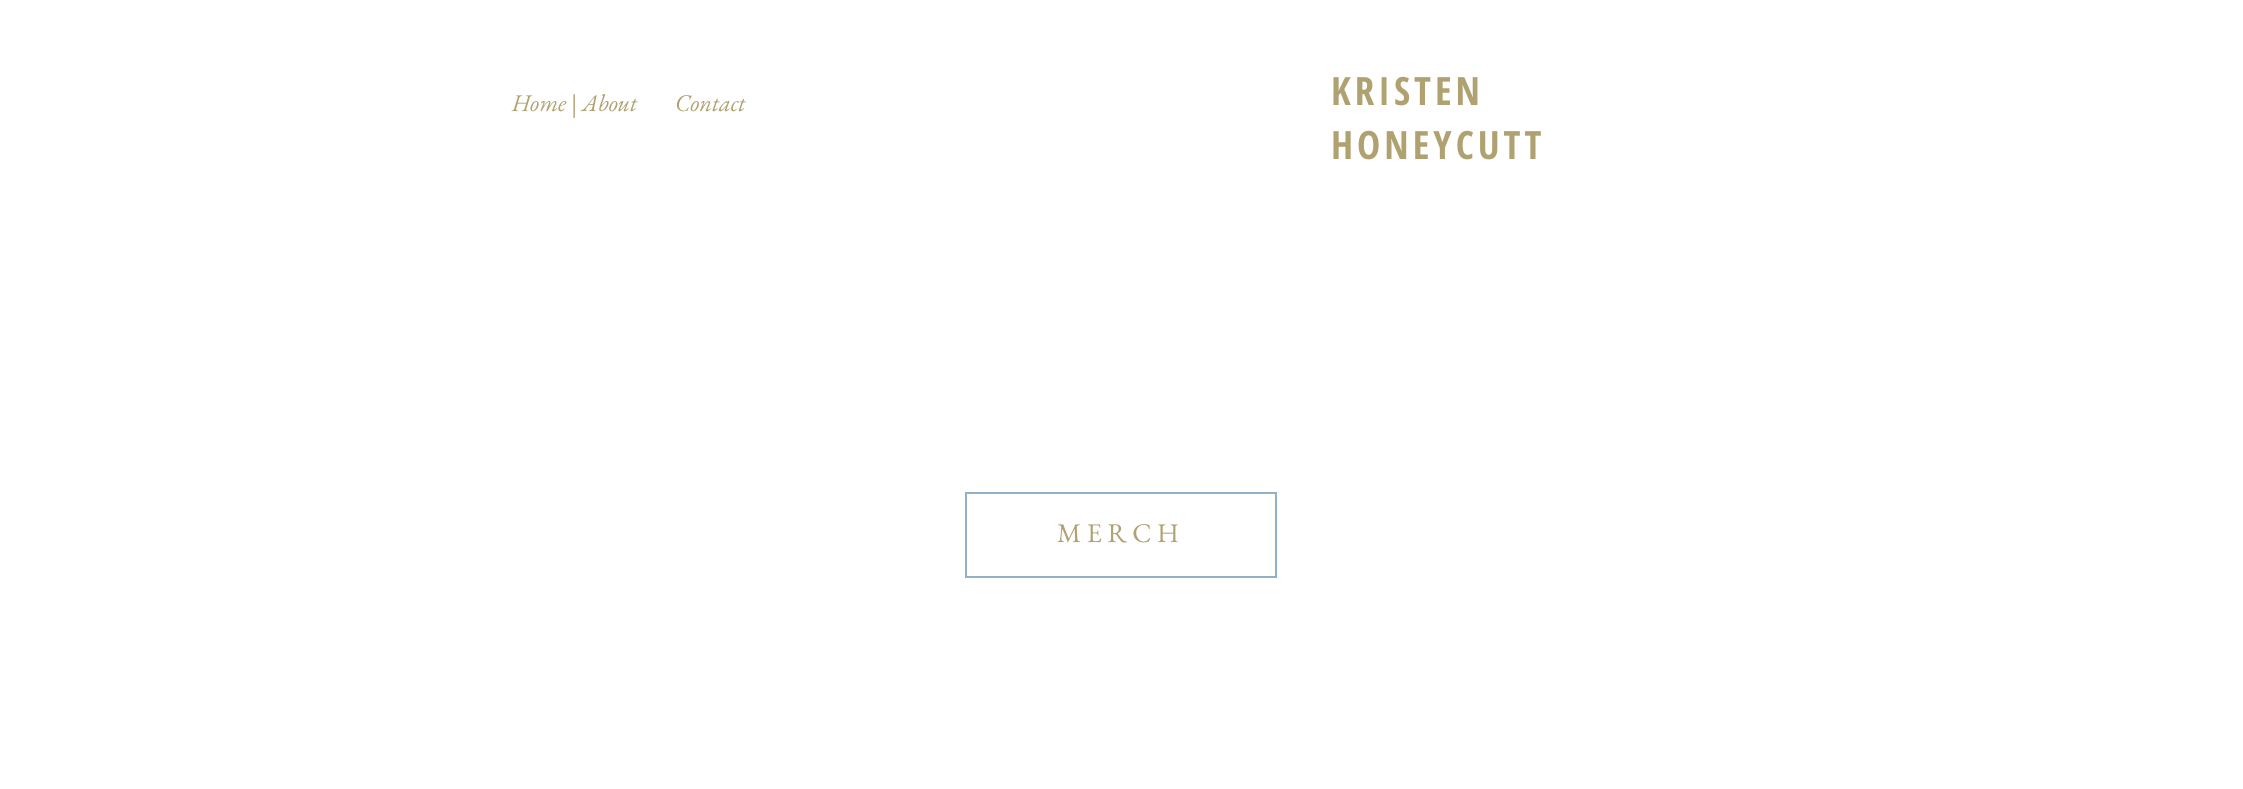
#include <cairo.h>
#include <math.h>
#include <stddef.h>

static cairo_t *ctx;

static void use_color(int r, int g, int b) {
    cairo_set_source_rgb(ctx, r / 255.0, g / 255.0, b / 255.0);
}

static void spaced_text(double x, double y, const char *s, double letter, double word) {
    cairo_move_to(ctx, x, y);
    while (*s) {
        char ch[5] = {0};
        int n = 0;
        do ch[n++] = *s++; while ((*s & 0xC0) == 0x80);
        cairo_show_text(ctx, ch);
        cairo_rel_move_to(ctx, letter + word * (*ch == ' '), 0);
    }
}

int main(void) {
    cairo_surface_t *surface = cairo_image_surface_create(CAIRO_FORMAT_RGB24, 2243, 789);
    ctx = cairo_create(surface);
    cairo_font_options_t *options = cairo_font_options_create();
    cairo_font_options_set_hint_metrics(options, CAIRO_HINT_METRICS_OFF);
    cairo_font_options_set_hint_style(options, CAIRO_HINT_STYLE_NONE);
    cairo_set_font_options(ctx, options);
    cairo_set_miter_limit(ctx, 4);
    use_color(255, 255, 255);
    cairo_paint(ctx);
    cairo_select_font_face(ctx, "EB Garamond", CAIRO_FONT_SLANT_ITALIC, CAIRO_FONT_WEIGHT_NORMAL);
    cairo_set_font_size(ctx, 24);
    use_color(176, 161, 113);
    cairo_move_to(ctx, 512, 111);
    cairo_show_text(ctx, "Home | About");
    cairo_move_to(ctx, 675, 111);
    cairo_show_text(ctx, "Contact");
    cairo_select_font_face(ctx, "Open Sans Condensed", CAIRO_FONT_SLANT_NORMAL, CAIRO_FONT_WEIGHT_BOLD);
    cairo_set_font_size(ctx, 39);
    spaced_text(1331, 105, "KRISTEN", 4, 0);
    spaced_text(1331, 159, "HONEYCUTT", 4, 0);
    cairo_rectangle(ctx, 966, 493, 310, 84);
    use_color(145, 175, 199);
    cairo_stroke(ctx);
    cairo_select_font_face(ctx, "EB Garamond", CAIRO_FONT_SLANT_NORMAL, CAIRO_FONT_WEIGHT_NORMAL);
    cairo_set_font_size(ctx, 27);
    use_color(176, 161, 113);
    spaced_text(1057, 542, "MERCH", 5.5, 0);
    cairo_surface_write_to_png(surface, "result.png");
    cairo_font_options_destroy(options);
    cairo_destroy(ctx);
    cairo_surface_destroy(surface);
    return 0;
}
